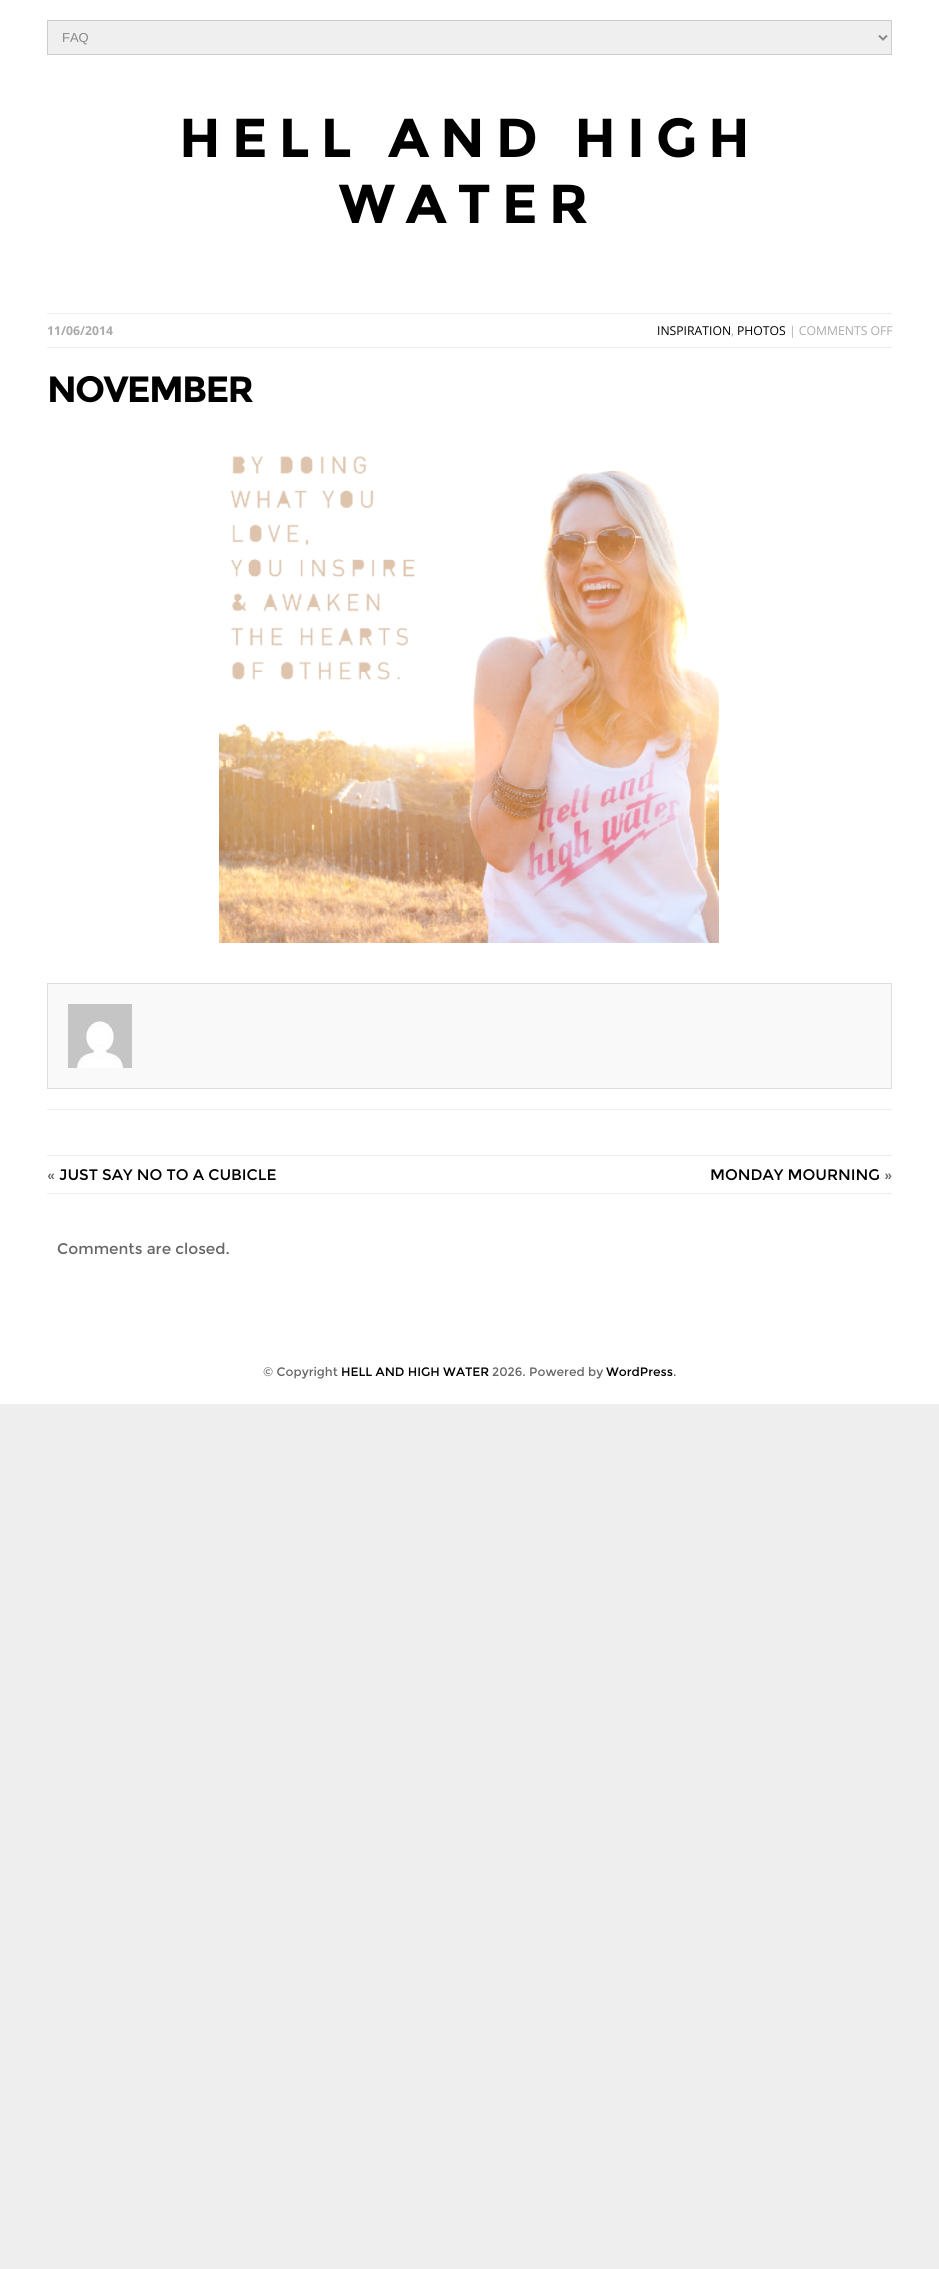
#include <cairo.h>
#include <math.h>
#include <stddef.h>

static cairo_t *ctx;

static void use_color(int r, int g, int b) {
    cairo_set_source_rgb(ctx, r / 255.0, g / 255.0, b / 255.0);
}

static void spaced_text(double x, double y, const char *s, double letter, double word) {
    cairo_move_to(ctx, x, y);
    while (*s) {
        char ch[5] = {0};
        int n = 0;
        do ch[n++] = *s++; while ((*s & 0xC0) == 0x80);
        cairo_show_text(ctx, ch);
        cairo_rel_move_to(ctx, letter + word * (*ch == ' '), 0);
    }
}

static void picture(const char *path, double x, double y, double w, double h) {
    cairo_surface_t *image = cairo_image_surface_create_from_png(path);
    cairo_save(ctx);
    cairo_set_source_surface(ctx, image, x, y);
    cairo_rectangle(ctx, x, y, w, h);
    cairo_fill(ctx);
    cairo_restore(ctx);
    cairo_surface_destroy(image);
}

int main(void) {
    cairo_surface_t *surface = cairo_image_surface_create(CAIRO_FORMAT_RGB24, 939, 2269);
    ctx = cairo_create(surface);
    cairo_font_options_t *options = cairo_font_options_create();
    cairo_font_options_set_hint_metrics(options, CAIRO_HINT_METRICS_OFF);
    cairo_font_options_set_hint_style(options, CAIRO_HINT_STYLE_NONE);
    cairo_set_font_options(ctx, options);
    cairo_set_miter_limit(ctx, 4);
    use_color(238, 238, 238);
    cairo_paint(ctx);
    use_color(255, 255, 255);
    cairo_rectangle(ctx, 0, 0, 939, 1404);
    cairo_fill(ctx);
    use_color(239, 239, 239);
    cairo_rectangle(ctx, 47.5, 20.5, 844, 34);
    cairo_fill_preserve(ctx);
    use_color(204, 204, 204);
    cairo_set_line_width(ctx, 1);
    cairo_stroke(ctx);
    cairo_new_path(ctx);
    cairo_move_to(ctx, 879, 35.5);
    cairo_line_to(ctx, 883, 39.5);
    cairo_line_to(ctx, 887, 35.5);
    use_color(136, 136, 136);
    cairo_set_line_width(ctx, 2);
    cairo_stroke(ctx);
    cairo_select_font_face(ctx, "Liberation Sans", CAIRO_FONT_SLANT_NORMAL, CAIRO_FONT_WEIGHT_NORMAL);
    cairo_set_font_size(ctx, 13);
    cairo_move_to(ctx, 62, 42);
    cairo_show_text(ctx, "FAQ");
    cairo_select_font_face(ctx, "Montserrat", CAIRO_FONT_SLANT_NORMAL, CAIRO_FONT_WEIGHT_BOLD);
    cairo_set_font_size(ctx, 54.75);
    use_color(0, 0, 0);
    spaced_text(179, 157, "HELL AND HIGH", 11, 0);
    spaced_text(339, 223, "WATER", 11, 0);
    use_color(238, 238, 238);
    cairo_rectangle(ctx, 47, 313, 845, 1);
    cairo_fill(ctx);
    cairo_rectangle(ctx, 47, 347, 845, 1);
    cairo_fill(ctx);
    cairo_select_font_face(ctx, "Open Sans", CAIRO_FONT_SLANT_NORMAL, CAIRO_FONT_WEIGHT_BOLD);
    cairo_set_font_size(ctx, 12.2);
    use_color(170, 170, 170);
    cairo_move_to(ctx, 47, 335);
    cairo_show_text(ctx, "11/06/2014");
    cairo_select_font_face(ctx, "Open Sans", CAIRO_FONT_SLANT_NORMAL, CAIRO_FONT_WEIGHT_NORMAL);
    use_color(0, 0, 0);
    cairo_move_to(ctx, 657, 335);
    cairo_show_text(ctx, "INSPIRATION");
    use_color(170, 170, 170);
    cairo_move_to(ctx, 731, 335);
    cairo_show_text(ctx, ",");
    use_color(0, 0, 0);
    cairo_move_to(ctx, 737, 335);
    cairo_show_text(ctx, "PHOTOS");
    use_color(170, 170, 170);
    cairo_move_to(ctx, 789, 335);
    cairo_show_text(ctx, "| COMMENTS OFF");
    cairo_select_font_face(ctx, "Montserrat", CAIRO_FONT_SLANT_NORMAL, CAIRO_FONT_WEIGHT_BOLD);
    cairo_set_font_size(ctx, 36.5);
    use_color(0, 0, 0);
    spaced_text(47, 402, "NOVEMBER", -1.75, 0);
    picture("img1.png", 219, 456, 500, 487);
    use_color(249, 249, 249);
    cairo_rectangle(ctx, 47.5, 983.5, 844, 105);
    cairo_fill_preserve(ctx);
    use_color(221, 221, 221);
    cairo_set_line_width(ctx, 1);
    cairo_stroke(ctx);
    picture("img2.png", 68, 1004, 64, 64);
    use_color(238, 238, 238);
    cairo_rectangle(ctx, 47, 1109, 845, 1);
    cairo_fill(ctx);
    cairo_rectangle(ctx, 47, 1155, 845, 1);
    cairo_fill(ctx);
    cairo_rectangle(ctx, 47, 1193, 845, 1);
    cairo_fill(ctx);
    cairo_select_font_face(ctx, "Montserrat", CAIRO_FONT_SLANT_NORMAL, CAIRO_FONT_WEIGHT_NORMAL);
    cairo_set_font_size(ctx, 15.25);
    use_color(102, 102, 102);
    cairo_move_to(ctx, 47, 1180);
    cairo_show_text(ctx, "«");
    use_color(0, 0, 0);
    cairo_move_to(ctx, 59, 1180);
    cairo_show_text(ctx, "JUST SAY NO TO A CUBICLE");
    cairo_move_to(ctx, 710, 1180);
    cairo_show_text(ctx, "MONDAY MOURNING");
    use_color(102, 102, 102);
    cairo_move_to(ctx, 884, 1180);
    cairo_show_text(ctx, "»");
    cairo_move_to(ctx, 57, 1254);
    cairo_show_text(ctx, "Comments are closed.");
    cairo_set_font_size(ctx, 12.2);
    cairo_move_to(ctx, 263, 1376);
    cairo_show_text(ctx, "© Copyright");
    use_color(0, 0, 0);
    cairo_move_to(ctx, 341, 1376);
    cairo_show_text(ctx, "HELL AND HIGH WATER");
    use_color(102, 102, 102);
    cairo_move_to(ctx, 492, 1376);
    cairo_show_text(ctx, "2026. Powered by");
    use_color(0, 0, 0);
    cairo_move_to(ctx, 606, 1376);
    cairo_show_text(ctx, "WordPress");
    use_color(102, 102, 102);
    cairo_move_to(ctx, 673, 1376);
    cairo_show_text(ctx, ".");
    cairo_surface_write_to_png(surface, "result.png");
    cairo_font_options_destroy(options);
    cairo_destroy(ctx);
    cairo_surface_destroy(surface);
    return 0;
}
